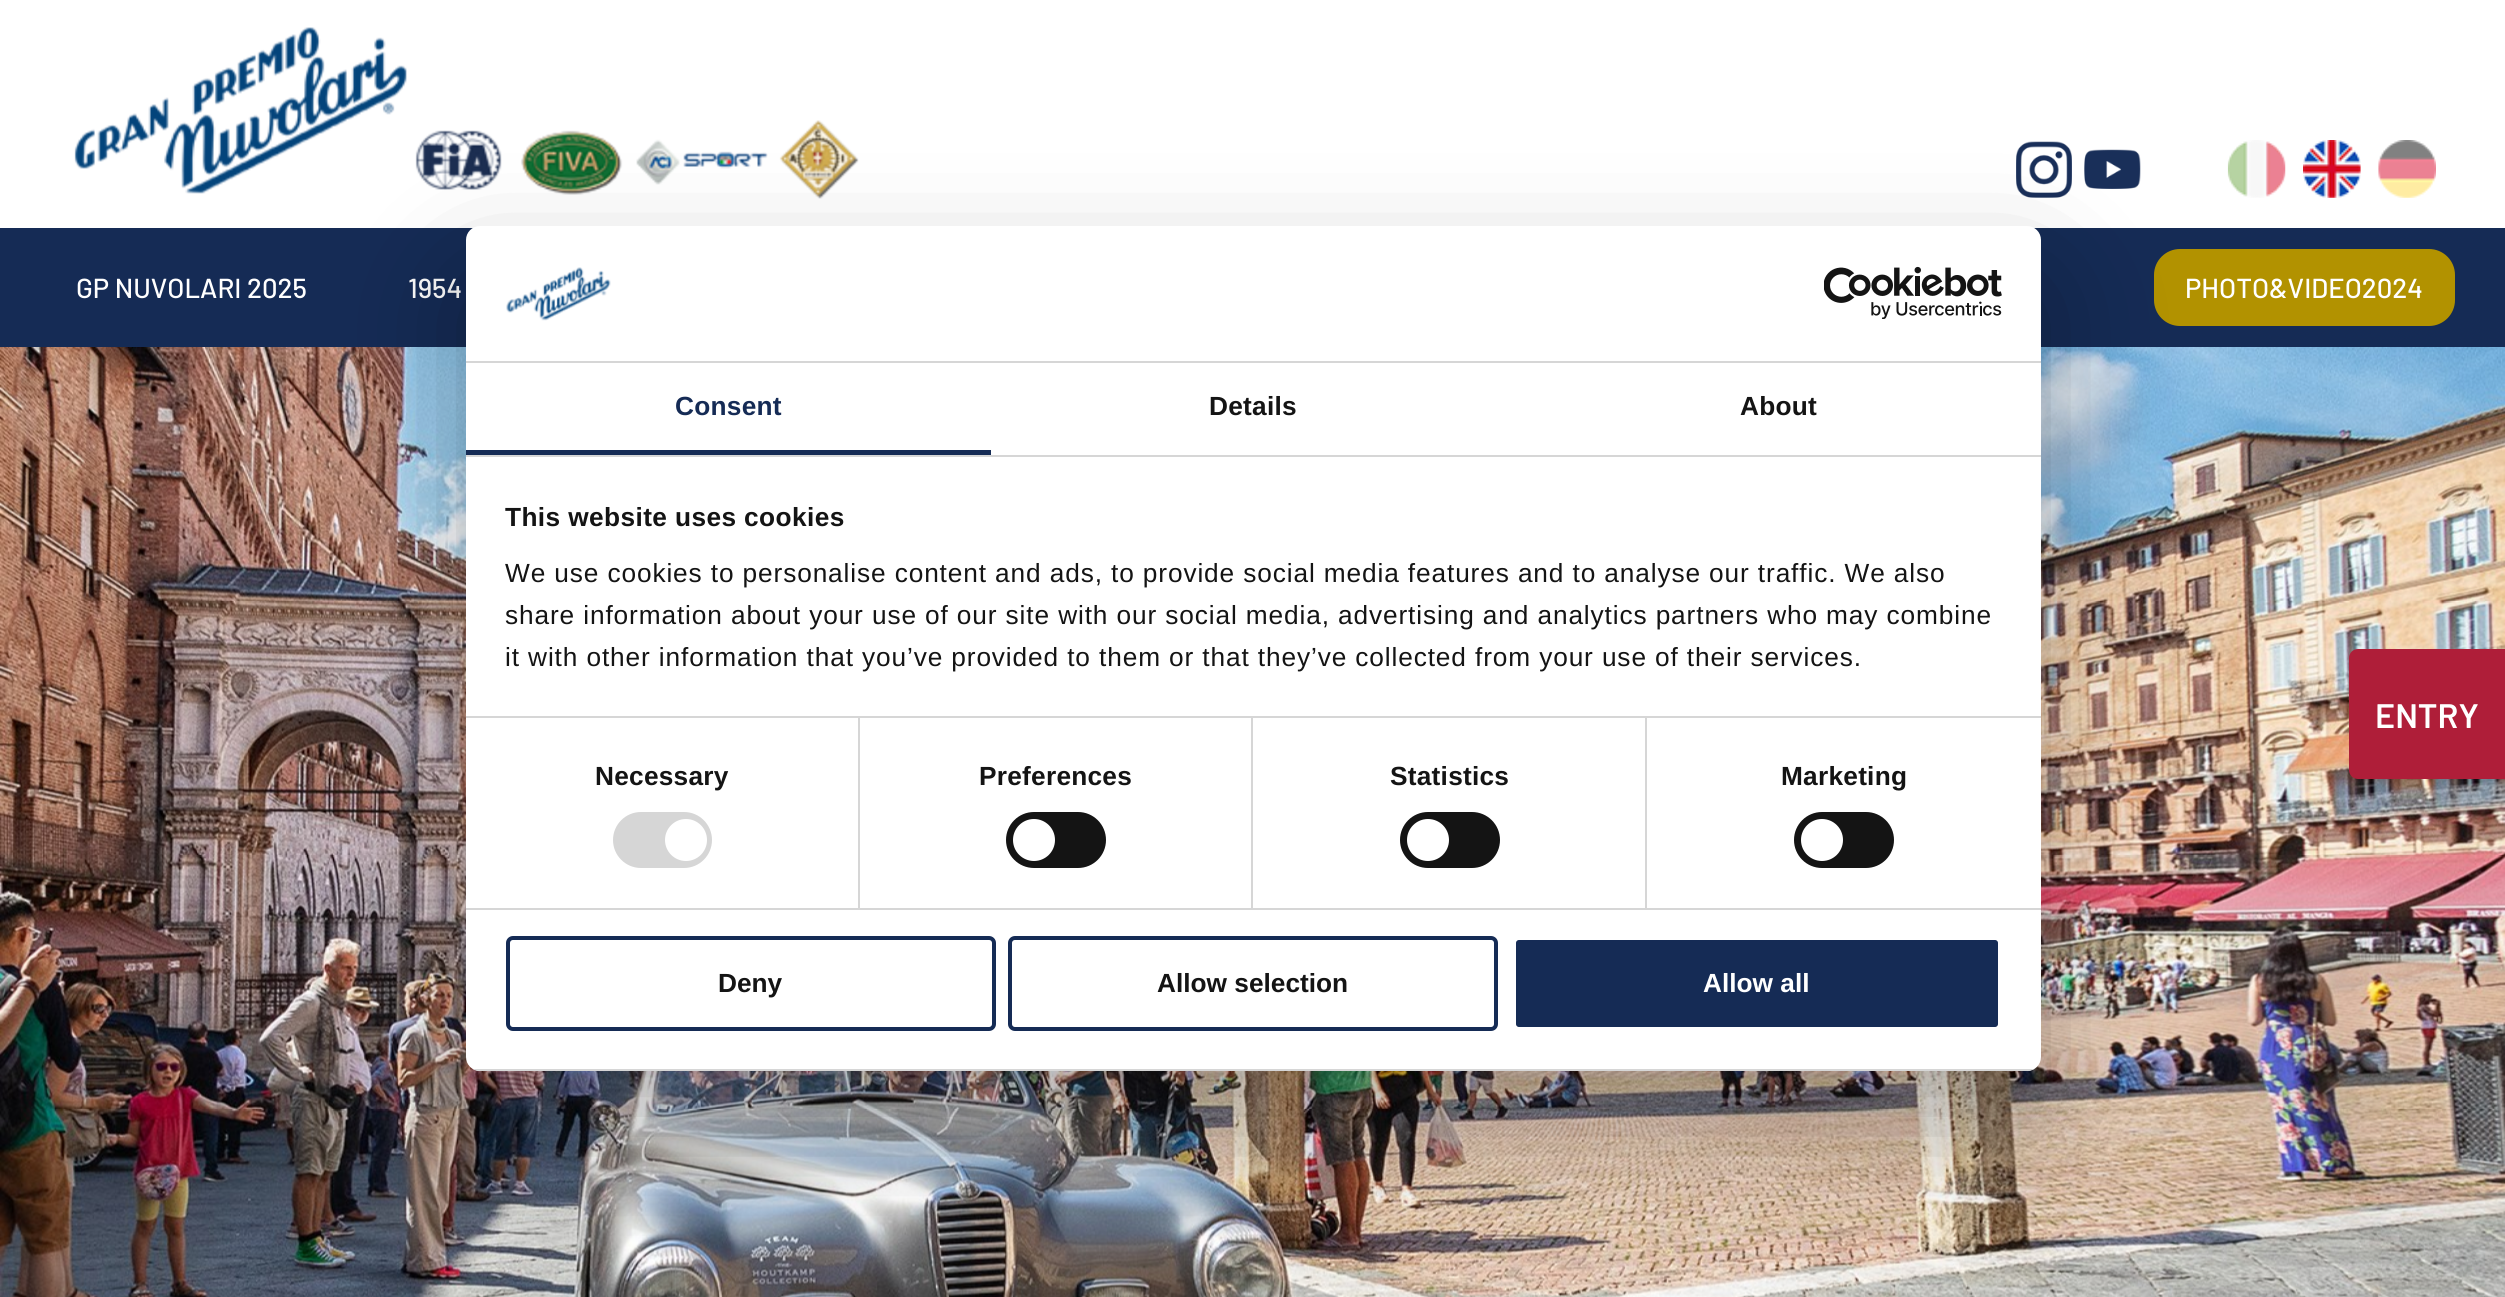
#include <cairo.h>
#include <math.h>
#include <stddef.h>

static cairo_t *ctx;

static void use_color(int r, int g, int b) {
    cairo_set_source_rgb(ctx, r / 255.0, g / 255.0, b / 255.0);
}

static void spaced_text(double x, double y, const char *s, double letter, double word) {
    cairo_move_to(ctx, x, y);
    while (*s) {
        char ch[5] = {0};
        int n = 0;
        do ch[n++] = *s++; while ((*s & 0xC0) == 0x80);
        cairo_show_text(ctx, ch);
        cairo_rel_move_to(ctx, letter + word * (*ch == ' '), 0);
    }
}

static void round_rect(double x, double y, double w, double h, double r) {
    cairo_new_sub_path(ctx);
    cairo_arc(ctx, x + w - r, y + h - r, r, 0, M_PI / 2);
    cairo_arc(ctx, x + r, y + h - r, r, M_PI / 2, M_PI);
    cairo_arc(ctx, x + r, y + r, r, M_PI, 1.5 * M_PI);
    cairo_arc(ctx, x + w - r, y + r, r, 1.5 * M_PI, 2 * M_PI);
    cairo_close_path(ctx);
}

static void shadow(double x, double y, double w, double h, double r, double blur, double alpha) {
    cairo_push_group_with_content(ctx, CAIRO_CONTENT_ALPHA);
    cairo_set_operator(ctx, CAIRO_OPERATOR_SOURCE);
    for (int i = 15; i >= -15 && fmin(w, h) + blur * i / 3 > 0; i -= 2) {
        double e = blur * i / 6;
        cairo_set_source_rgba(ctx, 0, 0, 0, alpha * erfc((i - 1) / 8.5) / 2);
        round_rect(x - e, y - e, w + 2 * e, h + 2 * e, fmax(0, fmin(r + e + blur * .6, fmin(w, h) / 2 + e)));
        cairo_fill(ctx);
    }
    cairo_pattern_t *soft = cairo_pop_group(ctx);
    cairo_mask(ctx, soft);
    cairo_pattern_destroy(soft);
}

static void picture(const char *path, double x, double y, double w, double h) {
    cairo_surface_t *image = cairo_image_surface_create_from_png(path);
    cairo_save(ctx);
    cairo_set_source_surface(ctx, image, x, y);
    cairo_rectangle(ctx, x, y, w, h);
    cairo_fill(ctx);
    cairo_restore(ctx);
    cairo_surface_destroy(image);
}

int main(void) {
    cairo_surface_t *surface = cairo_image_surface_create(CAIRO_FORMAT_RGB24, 2505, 1297);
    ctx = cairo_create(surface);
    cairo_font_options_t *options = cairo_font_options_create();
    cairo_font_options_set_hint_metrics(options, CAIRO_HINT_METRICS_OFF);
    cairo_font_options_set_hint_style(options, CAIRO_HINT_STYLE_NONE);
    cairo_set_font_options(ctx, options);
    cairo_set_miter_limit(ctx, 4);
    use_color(255, 255, 255);
    cairo_paint(ctx);
    picture("img1.png", 74, 27, 333, 167);
    picture("img2.png", 415, 120, 444, 79);
    picture("img3.png", 2016, 141, 56, 57);
    picture("img4.png", 2084, 149, 57, 40);
    picture("img5.png", 2227, 140, 59, 58);
    picture("img6.png", 2303, 140, 58, 58);
    picture("img7.png", 2378, 140, 58, 58);
    use_color(21, 43, 85);
    cairo_rectangle(ctx, 0, 228, 2505, 119);
    cairo_fill(ctx);
    cairo_select_font_face(ctx, "Barlow Medium", CAIRO_FONT_SLANT_NORMAL, CAIRO_FONT_WEIGHT_NORMAL);
    cairo_set_font_size(ctx, 27.5);
    use_color(255, 255, 255);
    cairo_move_to(ctx, 76, 298);
    cairo_show_text(ctx, "GP NUVOLARI 2025");
    cairo_move_to(ctx, 408, 298);
    cairo_show_text(ctx, "1954");
    use_color(178, 146, 0);
    round_rect(2154, 249, 301, 77, 26);
    cairo_fill(ctx);
    use_color(255, 255, 255);
    cairo_move_to(ctx, 2185, 298);
    cairo_show_text(ctx, "PHOTO&VIDEO2024");
    picture("img8.png", 0, 347, 2505, 950);
    use_color(175, 30, 57);
    cairo_new_path(ctx);
    cairo_move_to(ctx, 2358, 649);
    cairo_line_to(ctx, 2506, 649);
    cairo_line_to(ctx, 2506, 779);
    cairo_line_to(ctx, 2358, 779);
    cairo_curve_to(ctx, 2353, 779, 2349, 775, 2349, 770);
    cairo_line_to(ctx, 2349, 658);
    cairo_curve_to(ctx, 2349, 653, 2353, 649, 2358, 649);
    cairo_close_path(ctx);
    cairo_fill(ctx);
    cairo_select_font_face(ctx, "Barlow SemiBold", CAIRO_FONT_SLANT_NORMAL, CAIRO_FONT_WEIGHT_NORMAL);
    cairo_set_font_size(ctx, 34);
    use_color(255, 255, 255);
    cairo_move_to(ctx, 2375, 728);
    cairo_show_text(ctx, "ENTRY");
    use_color(0, 0, 0);
    shadow(466, 282, 1575, 845, 14, 59.5, 0.3);
    use_color(255, 255, 255);
    round_rect(466, 226, 1575, 845, 14);
    cairo_fill(ctx);
    use_color(214, 214, 214);
    cairo_rectangle(ctx, 466, 361, 1575, 2);
    cairo_fill(ctx);
    picture("img9.png", 506, 267, 105, 54);
    picture("img10.png", 1824, 266, 178, 53);
    cairo_rectangle(ctx, 466, 455, 1575, 2);
    cairo_fill(ctx);
    use_color(21, 43, 85);
    cairo_rectangle(ctx, 466, 450, 525, 5);
    cairo_fill(ctx);
    cairo_select_font_face(ctx, "Liberation Sans", CAIRO_FONT_SLANT_NORMAL, CAIRO_FONT_WEIGHT_BOLD);
    cairo_set_font_size(ctx, 26.25);
    spaced_text(675, 415, "Consent", 0.25, 0);
    use_color(20, 20, 20);
    spaced_text(1209, 415, "Details", 0.25, 0);
    spaced_text(1740, 415, "About", 0.25, 0);
    use_color(214, 214, 214);
    cairo_rectangle(ctx, 466, 716, 1575, 2);
    cairo_fill(ctx);
    use_color(20, 20, 20);
    spaced_text(505, 526, "This website uses cookies", 0.4, 0);
    cairo_select_font_face(ctx, "Liberation Sans", CAIRO_FONT_SLANT_NORMAL, CAIRO_FONT_WEIGHT_NORMAL);
    spaced_text(505, 582, "We use cookies to personalise content and ads, to provide social media features and to analyse our traffic. We also", 0.88, 0);
    spaced_text(505, 624, "share information about your use of our site with our social media, advertising and analytics partners who may combine", 0.88, 0);
    spaced_text(505, 666, "it with other information that you’ve provided to them or that they’ve collected from your use of their services.", 0.88, 0);
    use_color(214, 214, 214);
    cairo_rectangle(ctx, 466, 908, 1575, 2);
    cairo_fill(ctx);
    cairo_rectangle(ctx, 858, 718, 2, 190);
    cairo_fill(ctx);
    cairo_select_font_face(ctx, "Liberation Sans", CAIRO_FONT_SLANT_NORMAL, CAIRO_FONT_WEIGHT_BOLD);
    use_color(20, 20, 20);
    spaced_text(595, 785, "Necessary", 0.25, 0);
    use_color(214, 214, 214);
    round_rect(613, 812, 99, 56, 28);
    cairo_fill(ctx);
    use_color(255, 255, 255);
    cairo_arc(ctx, 686, 840, 21, 0, 2 * M_PI);
    cairo_fill(ctx);
    use_color(214, 214, 214);
    cairo_rectangle(ctx, 1251, 718, 2, 190);
    cairo_fill(ctx);
    use_color(20, 20, 20);
    spaced_text(979, 785, "Preferences", 0.25, 0);
    round_rect(1006, 812, 100, 56, 28);
    cairo_fill(ctx);
    use_color(255, 255, 255);
    cairo_arc(ctx, 1034, 840, 21, 0, 2 * M_PI);
    cairo_fill(ctx);
    use_color(214, 214, 214);
    cairo_rectangle(ctx, 1645, 718, 2, 190);
    cairo_fill(ctx);
    use_color(20, 20, 20);
    spaced_text(1390, 785, "Statistics", 0.25, 0);
    round_rect(1400, 812, 100, 56, 28);
    cairo_fill(ctx);
    use_color(255, 255, 255);
    cairo_arc(ctx, 1428, 840, 21, 0, 2 * M_PI);
    cairo_fill(ctx);
    use_color(20, 20, 20);
    spaced_text(1781, 785, "Marketing", 0.25, 0);
    round_rect(1794, 812, 100, 56, 28);
    cairo_fill(ctx);
    use_color(255, 255, 255);
    cairo_arc(ctx, 1822, 840, 21, 0, 2 * M_PI);
    cairo_fill(ctx);
    cairo_save(ctx);
    round_rect(466, 226, 1575, 845, 14);
    cairo_clip(ctx);
    use_color(214, 214, 214);
    cairo_rectangle(ctx, 466, 1069, 1575, 2);
    cairo_fill(ctx);
    cairo_restore(ctx);
    round_rect(508, 938, 486, 91, 5);
    use_color(21, 43, 85);
    cairo_set_line_width(ctx, 4);
    cairo_stroke(ctx);
    use_color(20, 20, 20);
    cairo_move_to(ctx, 718, 992);
    cairo_show_text(ctx, "Deny");
    round_rect(1010, 938, 486, 91, 5);
    use_color(21, 43, 85);
    cairo_stroke(ctx);
    use_color(20, 20, 20);
    cairo_move_to(ctx, 1157, 992);
    cairo_show_text(ctx, "Allow selection");
    use_color(21, 43, 85);
    round_rect(1514, 938, 486, 91, 5);
    cairo_fill_preserve(ctx);
    use_color(255, 255, 255);
    cairo_stroke(ctx);
    cairo_move_to(ctx, 1703, 992);
    cairo_show_text(ctx, "Allow all");
    cairo_surface_write_to_png(surface, "result.png");
    cairo_font_options_destroy(options);
    cairo_destroy(ctx);
    cairo_surface_destroy(surface);
    return 0;
}
